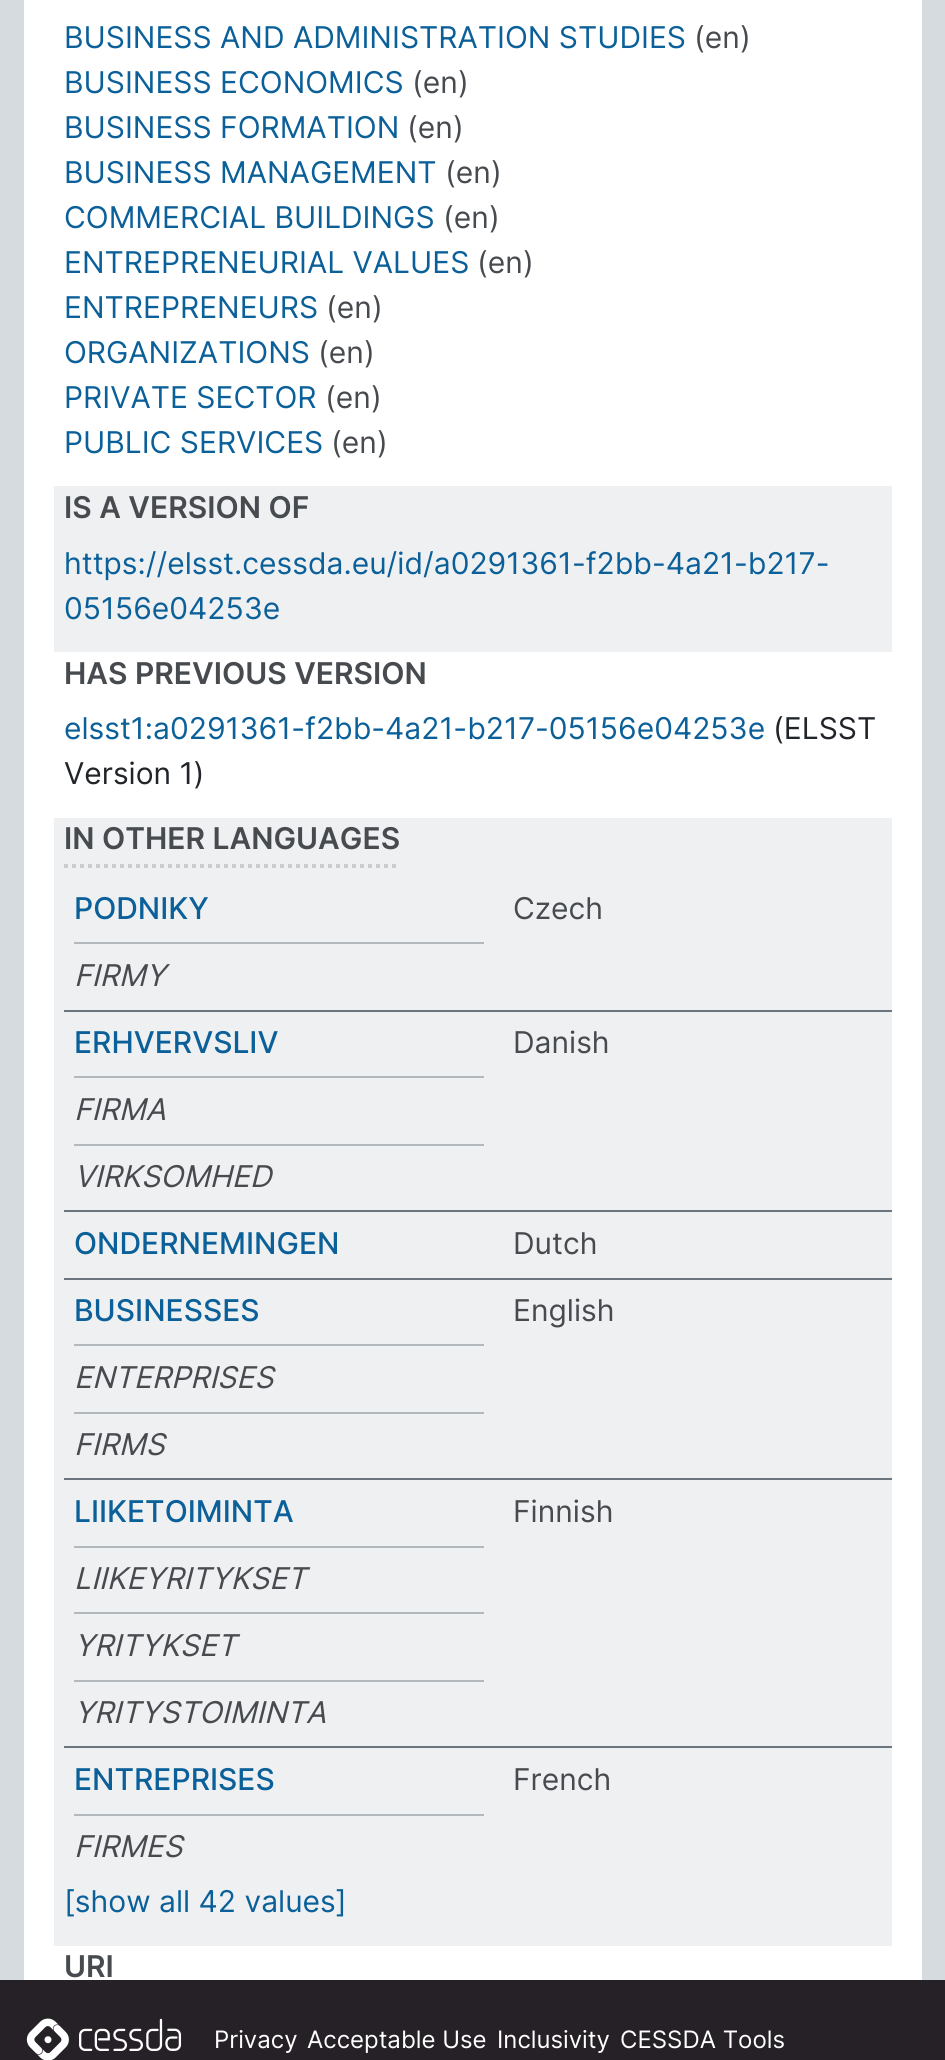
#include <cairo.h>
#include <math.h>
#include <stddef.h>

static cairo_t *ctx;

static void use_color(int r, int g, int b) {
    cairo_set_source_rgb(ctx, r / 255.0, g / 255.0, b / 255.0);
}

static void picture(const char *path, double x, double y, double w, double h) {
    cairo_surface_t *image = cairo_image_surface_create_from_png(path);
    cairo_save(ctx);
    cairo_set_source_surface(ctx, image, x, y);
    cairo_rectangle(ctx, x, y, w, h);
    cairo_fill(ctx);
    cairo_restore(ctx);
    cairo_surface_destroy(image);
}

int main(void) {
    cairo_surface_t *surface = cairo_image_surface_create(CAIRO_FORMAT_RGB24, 945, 2060);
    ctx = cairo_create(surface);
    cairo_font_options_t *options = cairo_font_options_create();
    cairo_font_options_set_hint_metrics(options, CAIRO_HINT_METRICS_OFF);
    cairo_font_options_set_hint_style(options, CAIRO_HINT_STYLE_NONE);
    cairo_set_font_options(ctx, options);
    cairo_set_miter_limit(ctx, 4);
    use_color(213, 219, 222);
    cairo_paint(ctx);
    use_color(255, 255, 255);
    cairo_rectangle(ctx, 24, 0, 898, 1980);
    cairo_fill(ctx);
    cairo_select_font_face(ctx, "Inter", CAIRO_FONT_SLANT_NORMAL, CAIRO_FONT_WEIGHT_NORMAL);
    cairo_set_font_size(ctx, 30);
    use_color(11, 96, 153);
    cairo_move_to(ctx, 64, 48);
    cairo_show_text(ctx, "BUSINESS AND ADMINISTRATION STUDIES");
    use_color(71, 75, 79);
    cairo_move_to(ctx, 694, 48);
    cairo_show_text(ctx, "(en)");
    use_color(11, 96, 153);
    cairo_move_to(ctx, 64, 93);
    cairo_show_text(ctx, "BUSINESS ECONOMICS");
    use_color(71, 75, 79);
    cairo_move_to(ctx, 412, 93);
    cairo_show_text(ctx, "(en)");
    use_color(11, 96, 153);
    cairo_move_to(ctx, 64, 138);
    cairo_show_text(ctx, "BUSINESS FORMATION");
    use_color(71, 75, 79);
    cairo_move_to(ctx, 407, 138);
    cairo_show_text(ctx, "(en)");
    use_color(11, 96, 153);
    cairo_move_to(ctx, 64, 183);
    cairo_show_text(ctx, "BUSINESS MANAGEMENT");
    use_color(71, 75, 79);
    cairo_move_to(ctx, 445, 183);
    cairo_show_text(ctx, "(en)");
    use_color(11, 96, 153);
    cairo_move_to(ctx, 64, 228);
    cairo_show_text(ctx, "COMMERCIAL BUILDINGS");
    use_color(71, 75, 79);
    cairo_move_to(ctx, 443, 228);
    cairo_show_text(ctx, "(en)");
    use_color(11, 96, 153);
    cairo_move_to(ctx, 64, 273);
    cairo_show_text(ctx, "ENTREPRENEURIAL VALUES");
    use_color(71, 75, 79);
    cairo_move_to(ctx, 477, 273);
    cairo_show_text(ctx, "(en)");
    use_color(11, 96, 153);
    cairo_move_to(ctx, 64, 318);
    cairo_show_text(ctx, "ENTREPRENEURS");
    use_color(71, 75, 79);
    cairo_move_to(ctx, 326, 318);
    cairo_show_text(ctx, "(en)");
    use_color(11, 96, 153);
    cairo_move_to(ctx, 64, 363);
    cairo_show_text(ctx, "ORGANIZATIONS");
    use_color(71, 75, 79);
    cairo_move_to(ctx, 318, 363);
    cairo_show_text(ctx, "(en)");
    use_color(11, 96, 153);
    cairo_move_to(ctx, 64, 408);
    cairo_show_text(ctx, "PRIVATE SECTOR");
    use_color(71, 75, 79);
    cairo_move_to(ctx, 325, 408);
    cairo_show_text(ctx, "(en)");
    use_color(11, 96, 153);
    cairo_move_to(ctx, 64, 453);
    cairo_show_text(ctx, "PUBLIC SERVICES");
    use_color(71, 75, 79);
    cairo_move_to(ctx, 331, 453);
    cairo_show_text(ctx, "(en)");
    use_color(239, 240, 241);
    cairo_rectangle(ctx, 54, 486, 838, 166);
    cairo_fill(ctx);
    cairo_select_font_face(ctx, "Inter SemiBold", CAIRO_FONT_SLANT_NORMAL, CAIRO_FONT_WEIGHT_NORMAL);
    use_color(71, 75, 79);
    cairo_move_to(ctx, 64, 518);
    cairo_show_text(ctx, "IS A VERSION OF");
    cairo_select_font_face(ctx, "Inter", CAIRO_FONT_SLANT_NORMAL, CAIRO_FONT_WEIGHT_NORMAL);
    use_color(11, 96, 153);
    cairo_move_to(ctx, 64, 574);
    cairo_show_text(ctx, "https://elsst.cessda.eu/id/a0291361-f2bb-4a21-b217-");
    cairo_move_to(ctx, 64, 619);
    cairo_show_text(ctx, "05156e04253e");
    cairo_select_font_face(ctx, "Inter SemiBold", CAIRO_FONT_SLANT_NORMAL, CAIRO_FONT_WEIGHT_NORMAL);
    use_color(71, 75, 79);
    cairo_move_to(ctx, 64, 684);
    cairo_show_text(ctx, "HAS PREVIOUS VERSION");
    cairo_select_font_face(ctx, "Inter", CAIRO_FONT_SLANT_NORMAL, CAIRO_FONT_WEIGHT_NORMAL);
    use_color(11, 96, 153);
    cairo_move_to(ctx, 64, 739);
    cairo_show_text(ctx, "elsst1:a0291361-f2bb-4a21-b217-05156e04253e");
    use_color(33, 37, 41);
    cairo_move_to(ctx, 773, 739);
    cairo_show_text(ctx, "(ELSST");
    cairo_move_to(ctx, 64, 784);
    cairo_show_text(ctx, "Version 1)");
    use_color(239, 240, 241);
    cairo_rectangle(ctx, 54, 818, 838, 1128);
    cairo_fill(ctx);
    cairo_new_path(ctx);
    cairo_move_to(ctx, 64, 866);
    cairo_line_to(ctx, 400, 866);
    use_color(204, 204, 204);
    cairo_set_line_width(ctx, 4);
    cairo_set_dash(ctx, (double[]){4, 4}, 2, 0);
    cairo_stroke(ctx);
    cairo_select_font_face(ctx, "Inter SemiBold", CAIRO_FONT_SLANT_NORMAL, CAIRO_FONT_WEIGHT_NORMAL);
    use_color(71, 75, 79);
    cairo_move_to(ctx, 64, 849);
    cairo_show_text(ctx, "IN OTHER LANGUAGES");
    cairo_select_font_face(ctx, "Inter Medium", CAIRO_FONT_SLANT_NORMAL, CAIRO_FONT_WEIGHT_NORMAL);
    use_color(11, 96, 153);
    cairo_move_to(ctx, 74, 919);
    cairo_show_text(ctx, "PODNIKY");
    cairo_select_font_face(ctx, "Inter", CAIRO_FONT_SLANT_NORMAL, CAIRO_FONT_WEIGHT_NORMAL);
    use_color(71, 75, 79);
    cairo_move_to(ctx, 513, 919);
    cairo_show_text(ctx, "Czech");
    use_color(179, 184, 189);
    cairo_rectangle(ctx, 74, 942, 410, 2);
    cairo_fill(ctx);
    cairo_select_font_face(ctx, "Inter", CAIRO_FONT_SLANT_ITALIC, CAIRO_FONT_WEIGHT_NORMAL);
    use_color(71, 75, 79);
    cairo_move_to(ctx, 74, 986);
    cairo_show_text(ctx, "FIRMY");
    use_color(108, 117, 125);
    cairo_rectangle(ctx, 64, 1010, 828, 2);
    cairo_fill(ctx);
    cairo_select_font_face(ctx, "Inter Medium", CAIRO_FONT_SLANT_NORMAL, CAIRO_FONT_WEIGHT_NORMAL);
    use_color(11, 96, 153);
    cairo_move_to(ctx, 74, 1053);
    cairo_show_text(ctx, "ERHVERVSLIV");
    cairo_select_font_face(ctx, "Inter", CAIRO_FONT_SLANT_NORMAL, CAIRO_FONT_WEIGHT_NORMAL);
    use_color(71, 75, 79);
    cairo_move_to(ctx, 513, 1053);
    cairo_show_text(ctx, "Danish");
    use_color(179, 184, 189);
    cairo_rectangle(ctx, 74, 1076, 410, 2);
    cairo_fill(ctx);
    cairo_select_font_face(ctx, "Inter", CAIRO_FONT_SLANT_ITALIC, CAIRO_FONT_WEIGHT_NORMAL);
    use_color(71, 75, 79);
    cairo_move_to(ctx, 74, 1120);
    cairo_show_text(ctx, "FIRMA");
    use_color(179, 184, 189);
    cairo_rectangle(ctx, 74, 1144, 410, 2);
    cairo_fill(ctx);
    use_color(71, 75, 79);
    cairo_move_to(ctx, 74, 1187);
    cairo_show_text(ctx, "VIRKSOMHED");
    use_color(108, 117, 125);
    cairo_rectangle(ctx, 64, 1210, 828, 2);
    cairo_fill(ctx);
    cairo_select_font_face(ctx, "Inter Medium", CAIRO_FONT_SLANT_NORMAL, CAIRO_FONT_WEIGHT_NORMAL);
    use_color(11, 96, 153);
    cairo_move_to(ctx, 74, 1254);
    cairo_show_text(ctx, "ONDERNEMINGEN");
    cairo_select_font_face(ctx, "Inter", CAIRO_FONT_SLANT_NORMAL, CAIRO_FONT_WEIGHT_NORMAL);
    use_color(71, 75, 79);
    cairo_move_to(ctx, 513, 1254);
    cairo_show_text(ctx, "Dutch");
    use_color(108, 117, 125);
    cairo_rectangle(ctx, 64, 1278, 828, 2);
    cairo_fill(ctx);
    cairo_select_font_face(ctx, "Inter Medium", CAIRO_FONT_SLANT_NORMAL, CAIRO_FONT_WEIGHT_NORMAL);
    use_color(11, 96, 153);
    cairo_move_to(ctx, 74, 1321);
    cairo_show_text(ctx, "BUSINESSES");
    cairo_select_font_face(ctx, "Inter", CAIRO_FONT_SLANT_NORMAL, CAIRO_FONT_WEIGHT_NORMAL);
    use_color(71, 75, 79);
    cairo_move_to(ctx, 513, 1321);
    cairo_show_text(ctx, "English");
    use_color(179, 184, 189);
    cairo_rectangle(ctx, 74, 1344, 410, 2);
    cairo_fill(ctx);
    cairo_select_font_face(ctx, "Inter", CAIRO_FONT_SLANT_ITALIC, CAIRO_FONT_WEIGHT_NORMAL);
    use_color(71, 75, 79);
    cairo_move_to(ctx, 74, 1388);
    cairo_show_text(ctx, "ENTERPRISES");
    use_color(179, 184, 189);
    cairo_rectangle(ctx, 74, 1412, 410, 2);
    cairo_fill(ctx);
    use_color(71, 75, 79);
    cairo_move_to(ctx, 74, 1455);
    cairo_show_text(ctx, "FIRMS");
    use_color(108, 117, 125);
    cairo_rectangle(ctx, 64, 1478, 828, 2);
    cairo_fill(ctx);
    cairo_select_font_face(ctx, "Inter Medium", CAIRO_FONT_SLANT_NORMAL, CAIRO_FONT_WEIGHT_NORMAL);
    use_color(11, 96, 153);
    cairo_move_to(ctx, 74, 1522);
    cairo_show_text(ctx, "LIIKETOIMINTA");
    cairo_select_font_face(ctx, "Inter", CAIRO_FONT_SLANT_NORMAL, CAIRO_FONT_WEIGHT_NORMAL);
    use_color(71, 75, 79);
    cairo_move_to(ctx, 513, 1522);
    cairo_show_text(ctx, "Finnish");
    use_color(179, 184, 189);
    cairo_rectangle(ctx, 74, 1546, 410, 2);
    cairo_fill(ctx);
    cairo_select_font_face(ctx, "Inter", CAIRO_FONT_SLANT_ITALIC, CAIRO_FONT_WEIGHT_NORMAL);
    use_color(71, 75, 79);
    cairo_move_to(ctx, 74, 1589);
    cairo_show_text(ctx, "LIIKEYRITYKSET");
    use_color(179, 184, 189);
    cairo_rectangle(ctx, 74, 1612, 410, 2);
    cairo_fill(ctx);
    use_color(71, 75, 79);
    cairo_move_to(ctx, 74, 1656);
    cairo_show_text(ctx, "YRITYKSET");
    use_color(179, 184, 189);
    cairo_rectangle(ctx, 74, 1680, 410, 2);
    cairo_fill(ctx);
    use_color(71, 75, 79);
    cairo_move_to(ctx, 74, 1723);
    cairo_show_text(ctx, "YRITYSTOIMINTA");
    use_color(108, 117, 125);
    cairo_rectangle(ctx, 64, 1746, 828, 2);
    cairo_fill(ctx);
    cairo_select_font_face(ctx, "Inter Medium", CAIRO_FONT_SLANT_NORMAL, CAIRO_FONT_WEIGHT_NORMAL);
    use_color(11, 96, 153);
    cairo_move_to(ctx, 74, 1790);
    cairo_show_text(ctx, "ENTREPRISES");
    cairo_select_font_face(ctx, "Inter", CAIRO_FONT_SLANT_NORMAL, CAIRO_FONT_WEIGHT_NORMAL);
    use_color(71, 75, 79);
    cairo_move_to(ctx, 513, 1790);
    cairo_show_text(ctx, "French");
    use_color(179, 184, 189);
    cairo_rectangle(ctx, 74, 1814, 410, 2);
    cairo_fill(ctx);
    cairo_select_font_face(ctx, "Inter", CAIRO_FONT_SLANT_ITALIC, CAIRO_FONT_WEIGHT_NORMAL);
    use_color(71, 75, 79);
    cairo_move_to(ctx, 74, 1857);
    cairo_show_text(ctx, "FIRMES");
    cairo_select_font_face(ctx, "Inter", CAIRO_FONT_SLANT_NORMAL, CAIRO_FONT_WEIGHT_NORMAL);
    use_color(11, 96, 153);
    cairo_move_to(ctx, 64, 1912);
    cairo_show_text(ctx, "[show all 42 values]");
    cairo_select_font_face(ctx, "Inter SemiBold", CAIRO_FONT_SLANT_NORMAL, CAIRO_FONT_WEIGHT_NORMAL);
    use_color(71, 75, 79);
    cairo_move_to(ctx, 64, 1977);
    cairo_show_text(ctx, "URI");
    use_color(38, 33, 38);
    cairo_rectangle(ctx, 0, 1980, 945, 80);
    cairo_fill(ctx);
    picture("img1.png", 26, 2018, 156, 42);
    cairo_select_font_face(ctx, "Inter", CAIRO_FONT_SLANT_NORMAL, CAIRO_FONT_WEIGHT_NORMAL);
    cairo_set_font_size(ctx, 24);
    use_color(255, 255, 255);
    cairo_move_to(ctx, 214, 2048);
    cairo_show_text(ctx, "Privacy");
    cairo_move_to(ctx, 307, 2048);
    cairo_show_text(ctx, "Acceptable Use");
    cairo_move_to(ctx, 497, 2048);
    cairo_show_text(ctx, "Inclusivity");
    cairo_move_to(ctx, 620, 2048);
    cairo_show_text(ctx, "CESSDA Tools");
    cairo_surface_write_to_png(surface, "result.png");
    cairo_font_options_destroy(options);
    cairo_destroy(ctx);
    cairo_surface_destroy(surface);
    return 0;
}
